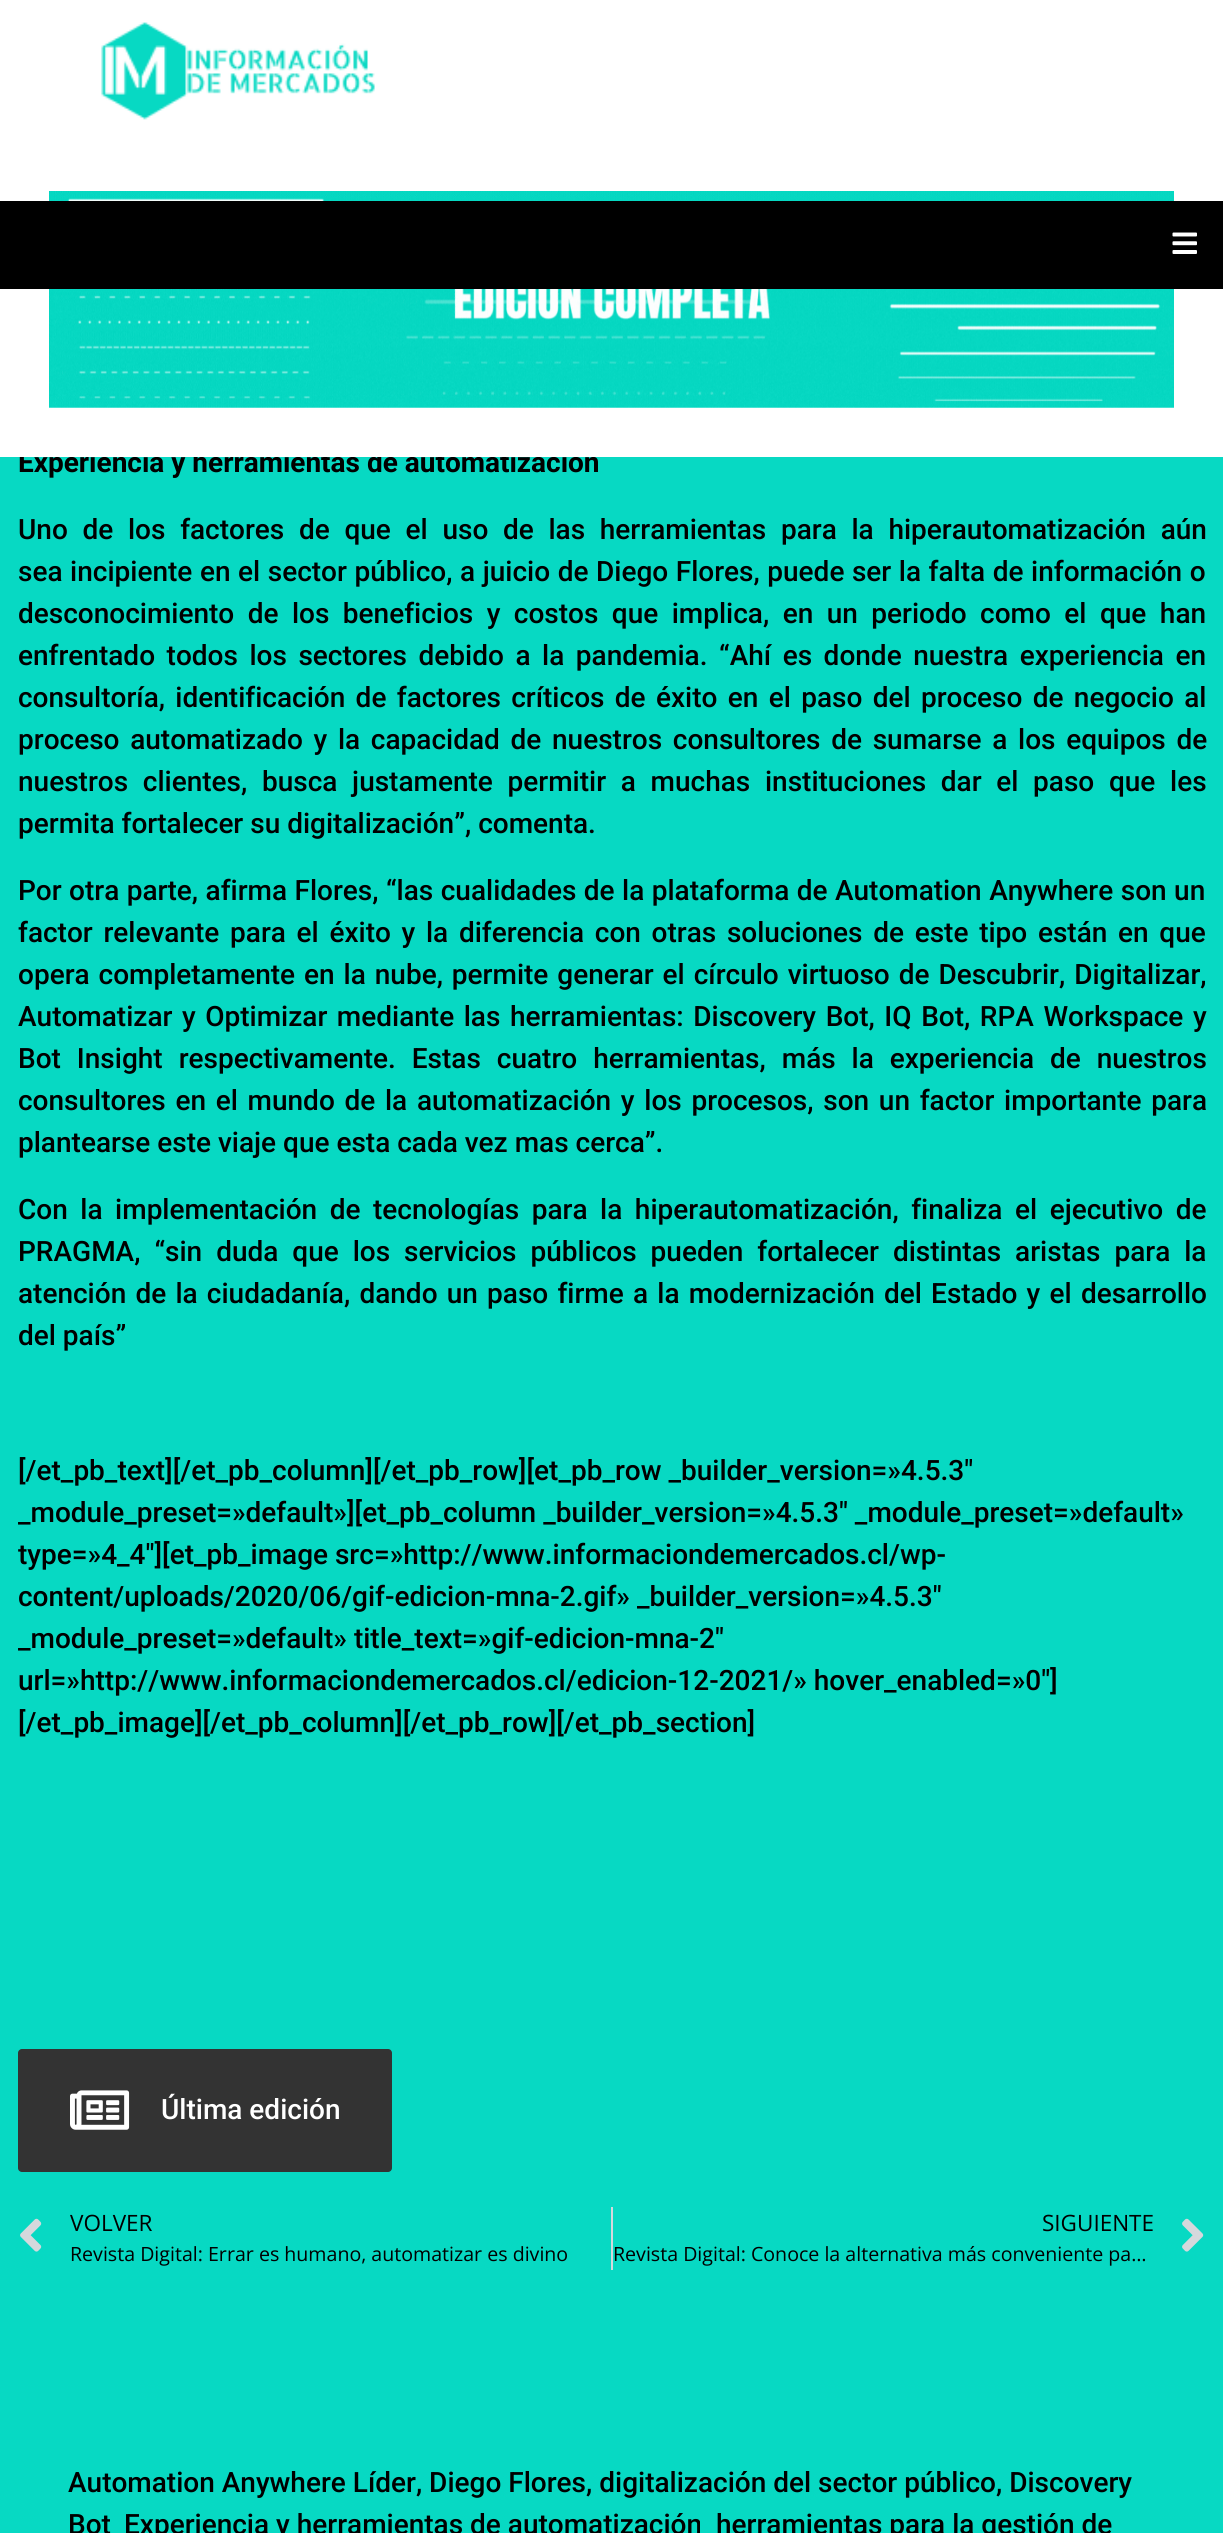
#include <cairo.h>
#include <math.h>
#include <stddef.h>

static cairo_t *ctx;

static void use_color(int r, int g, int b) {
    cairo_set_source_rgb(ctx, r / 255.0, g / 255.0, b / 255.0);
}

static void spaced_text(double x, double y, const char *s, double letter, double word) {
    cairo_move_to(ctx, x, y);
    while (*s) {
        char ch[5] = {0};
        int n = 0;
        do ch[n++] = *s++; while ((*s & 0xC0) == 0x80);
        cairo_show_text(ctx, ch);
        cairo_rel_move_to(ctx, letter + word * (*ch == ' '), 0);
    }
}

static void round_rect(double x, double y, double w, double h, double r) {
    cairo_new_sub_path(ctx);
    cairo_arc(ctx, x + w - r, y + h - r, r, 0, M_PI / 2);
    cairo_arc(ctx, x + r, y + h - r, r, M_PI / 2, M_PI);
    cairo_arc(ctx, x + r, y + r, r, M_PI, 1.5 * M_PI);
    cairo_arc(ctx, x + w - r, y + r, r, 1.5 * M_PI, 2 * M_PI);
    cairo_close_path(ctx);
}

static void picture(const char *path, double x, double y, double w, double h) {
    cairo_surface_t *image = cairo_image_surface_create_from_png(path);
    cairo_save(ctx);
    cairo_set_source_surface(ctx, image, x, y);
    cairo_rectangle(ctx, x, y, w, h);
    cairo_fill(ctx);
    cairo_restore(ctx);
    cairo_surface_destroy(image);
}

int main(void) {
    cairo_surface_t *surface = cairo_image_surface_create(CAIRO_FORMAT_RGB24, 1223, 2533);
    ctx = cairo_create(surface);
    cairo_font_options_t *options = cairo_font_options_create();
    cairo_font_options_set_hint_metrics(options, CAIRO_HINT_METRICS_OFF);
    cairo_font_options_set_hint_style(options, CAIRO_HINT_STYLE_NONE);
    cairo_set_font_options(ctx, options);
    cairo_set_miter_limit(ctx, 4);
    use_color(7, 217, 195);
    cairo_paint(ctx);
    cairo_select_font_face(ctx, "Roboto", CAIRO_FONT_SLANT_NORMAL, CAIRO_FONT_WEIGHT_BOLD);
    cairo_set_font_size(ctx, 28);
    use_color(0, 0, 0);
    cairo_move_to(ctx, 18, 472);
    cairo_show_text(ctx, "Experiencia y herramientas de automatización");
    use_color(255, 255, 255);
    cairo_rectangle(ctx, 0, 0, 1223, 457);
    cairo_fill(ctx);
    picture("img1.png", 101, 22, 274, 98);
    picture("img2.png", 49, 191, 1125, 217);
    use_color(0, 0, 0);
    cairo_rectangle(ctx, 0, 201, 1223, 88);
    cairo_fill(ctx);
    picture("img3.png", 1172, 232, 25, 22);
    cairo_select_font_face(ctx, "Roboto Medium", CAIRO_FONT_SLANT_NORMAL, CAIRO_FONT_WEIGHT_NORMAL);
    spaced_text(18, 539, "Uno de los factores de que el uso de las herramientas para la hiperautomatización aún", 0, 7.75);
    spaced_text(18, 581, "sea incipiente en el sector público, a juicio de Diego Flores, puede ser la falta de información o", 0, 0.6);
    spaced_text(18, 623, "desconocimiento de los beneficios y costos que implica, en un periodo como el que han", 0, 6.5);
    spaced_text(18, 665, "enfrentado todos los sectores debido a la pandemia. “Ahí es donde nuestra experiencia en", 0, 4.6);
    spaced_text(18, 707, "consultoría, identificación de factores críticos de éxito en el paso del proceso de negocio al", 0, 3.4);
    spaced_text(18, 749, "proceso automatizado y la capacidad de nuestros consultores de sumarse a los equipos de", 0, 3.75);
    spaced_text(18, 791, "nuestros clientes, busca justamente permitir a muchas instituciones dar el paso que les", 0, 7.75);
    cairo_move_to(ctx, 18, 833);
    cairo_show_text(ctx, "permita fortalecer su digitalización”, comenta.");
    spaced_text(18, 900, "Por otra parte, afirma Flores, “las cualidades de la plataforma de Automation Anywhere son un", 0, 0.5);
    spaced_text(18, 942, "factor relevante para el éxito y la diferencia con otras soluciones de este tipo están en que", 0, 3.75);
    spaced_text(18, 984, "opera completamente en la nube, permite generar el círculo virtuoso de Descubrir, Digitalizar,", 0, 2);
    spaced_text(18, 1026, "Automatizar y Optimizar mediante las herramientas: Discovery Bot, IQ Bot, RPA Workspace y", 0, 2.6);
    spaced_text(18, 1068, "Bot Insight respectivamente. Estas cuatro herramientas, más la experiencia de nuestros", 0, 9);
    spaced_text(18, 1110, "consultores en el mundo de la automatización y los procesos, son un factor importante para", 0, 2.75);
    cairo_move_to(ctx, 18, 1152);
    cairo_show_text(ctx, "plantearse este viaje que esta cada vez mas cerca”.");
    spaced_text(18, 1219, "Con la implementación de tecnologías para la hiperautomatización, finaliza el ejecutivo de", 0, 5.6);
    spaced_text(18, 1261, "PRAGMA, “sin duda que los servicios públicos pueden fortalecer distintas aristas para la", 0, 7);
    spaced_text(18, 1303, "atención de la ciudadanía, dando un paso firme a la modernización del Estado y el desarrollo", 0, 2.25);
    cairo_move_to(ctx, 18, 1345);
    cairo_show_text(ctx, "del país”");
    cairo_move_to(ctx, 18, 1480);
    cairo_show_text(ctx, "[/et_pb_text][/et_pb_column][/et_pb_row][et_pb_row _builder_version=»4.5.3″");
    cairo_move_to(ctx, 18, 1522);
    cairo_show_text(ctx, "_module_preset=»default»][et_pb_column _builder_version=»4.5.3″ _module_preset=»default»");
    cairo_move_to(ctx, 18, 1564);
    cairo_show_text(ctx, "type=»4_4″][et_pb_image src=»http://www.informaciondemercados.cl/wp-");
    cairo_move_to(ctx, 18, 1606);
    cairo_show_text(ctx, "content/uploads/2020/06/gif-edicion-mna-2.gif» _builder_version=»4.5.3″");
    cairo_move_to(ctx, 18, 1648);
    cairo_show_text(ctx, "_module_preset=»default» title_text=»gif-edicion-mna-2″");
    cairo_move_to(ctx, 18, 1690);
    cairo_show_text(ctx, "url=»http://www.informaciondemercados.cl/edicion-12-2021/» hover_enabled=»0″]");
    cairo_move_to(ctx, 18, 1732);
    cairo_show_text(ctx, "[/et_pb_image][/et_pb_column][/et_pb_row][/et_pb_section]");
    use_color(51, 51, 51);
    round_rect(18, 2049, 374, 123, 4);
    cairo_fill(ctx);
    picture("img4.png", 70, 2090, 60, 40);
    use_color(255, 255, 255);
    cairo_move_to(ctx, 161, 2119);
    cairo_show_text(ctx, "Última edición");
    picture("img5.png", 20, 2218, 22, 34);
    cairo_select_font_face(ctx, "Open Sans", CAIRO_FONT_SLANT_NORMAL, CAIRO_FONT_WEIGHT_NORMAL);
    cairo_set_font_size(ctx, 22.5);
    use_color(0, 0, 0);
    cairo_move_to(ctx, 70, 2231);
    cairo_show_text(ctx, "VOLVER");
    cairo_set_font_size(ctx, 19.6);
    cairo_move_to(ctx, 70, 2261);
    cairo_show_text(ctx, "Revista Digital: Errar es humano, automatizar es divino");
    use_color(213, 216, 220);
    cairo_rectangle(ctx, 611, 2207, 2, 63);
    cairo_fill(ctx);
    cairo_set_font_size(ctx, 22.5);
    use_color(0, 0, 0);
    cairo_move_to(ctx, 1042, 2231);
    cairo_show_text(ctx, "SIGUIENTE");
    cairo_set_font_size(ctx, 19.6);
    cairo_move_to(ctx, 613, 2261);
    cairo_show_text(ctx, "Revista Digital: Conoce la alternativa más conveniente pa…");
    picture("img6.png", 1182, 2218, 22, 34);
    cairo_select_font_face(ctx, "Roboto Medium", CAIRO_FONT_SLANT_NORMAL, CAIRO_FONT_WEIGHT_NORMAL);
    cairo_set_font_size(ctx, 28);
    cairo_move_to(ctx, 68, 2492);
    cairo_show_text(ctx, "Automation Anywhere Líder, Diego Flores, digitalización del sector público, Discovery");
    cairo_move_to(ctx, 68, 2534);
    cairo_show_text(ctx, "Bot");
    cairo_move_to(ctx, 124, 2534);
    cairo_show_text(ctx, "Experiencia y herramientas de automatización");
    cairo_move_to(ctx, 716, 2534);
    cairo_show_text(ctx, "herramientas para la gestión de");
    cairo_surface_write_to_png(surface, "result.png");
    cairo_font_options_destroy(options);
    cairo_destroy(ctx);
    cairo_surface_destroy(surface);
    return 0;
}
